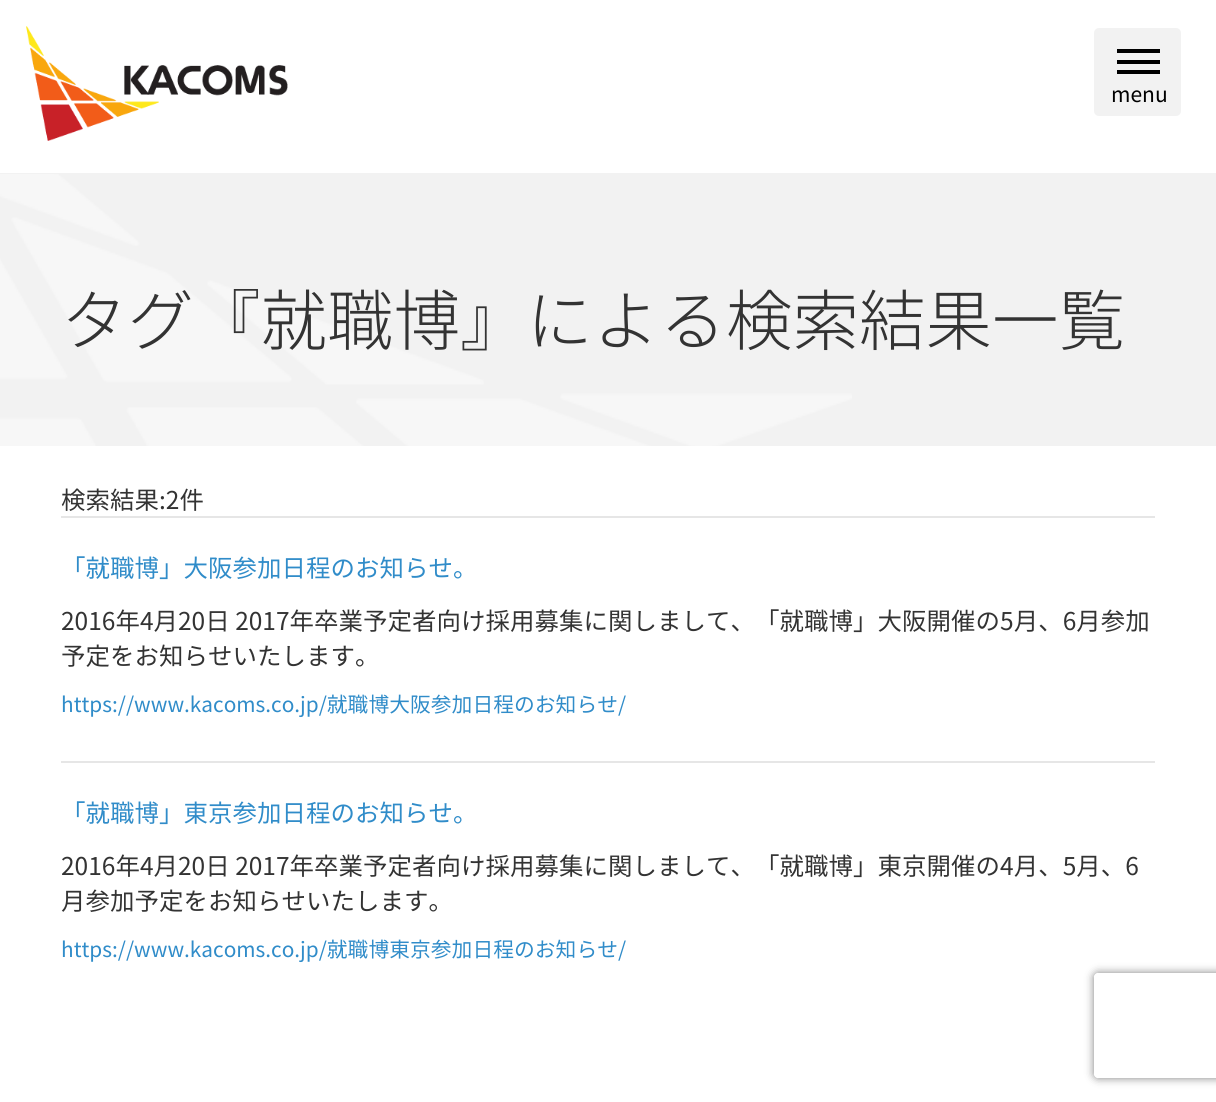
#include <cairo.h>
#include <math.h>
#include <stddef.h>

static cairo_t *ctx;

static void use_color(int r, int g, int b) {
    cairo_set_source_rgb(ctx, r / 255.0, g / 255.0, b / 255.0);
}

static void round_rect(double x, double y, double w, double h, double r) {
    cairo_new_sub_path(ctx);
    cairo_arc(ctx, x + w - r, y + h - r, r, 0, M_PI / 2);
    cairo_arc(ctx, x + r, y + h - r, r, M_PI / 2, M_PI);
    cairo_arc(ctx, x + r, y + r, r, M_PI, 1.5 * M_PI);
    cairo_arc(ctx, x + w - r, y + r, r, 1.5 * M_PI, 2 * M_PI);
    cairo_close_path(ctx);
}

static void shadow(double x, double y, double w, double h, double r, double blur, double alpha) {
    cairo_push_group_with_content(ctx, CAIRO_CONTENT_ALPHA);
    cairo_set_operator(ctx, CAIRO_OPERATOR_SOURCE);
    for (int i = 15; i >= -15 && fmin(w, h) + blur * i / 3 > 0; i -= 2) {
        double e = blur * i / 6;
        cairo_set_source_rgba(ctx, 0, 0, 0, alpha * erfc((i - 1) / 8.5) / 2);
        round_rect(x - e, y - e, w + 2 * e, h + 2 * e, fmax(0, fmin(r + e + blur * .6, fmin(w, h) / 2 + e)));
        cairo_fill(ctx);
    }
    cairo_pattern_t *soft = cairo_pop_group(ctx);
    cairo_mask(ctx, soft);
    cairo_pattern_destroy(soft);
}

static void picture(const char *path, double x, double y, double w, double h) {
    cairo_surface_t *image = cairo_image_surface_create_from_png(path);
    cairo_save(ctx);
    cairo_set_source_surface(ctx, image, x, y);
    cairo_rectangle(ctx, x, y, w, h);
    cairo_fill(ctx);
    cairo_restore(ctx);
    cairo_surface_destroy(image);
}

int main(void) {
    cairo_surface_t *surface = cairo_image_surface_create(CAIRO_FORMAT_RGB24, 1216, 1102);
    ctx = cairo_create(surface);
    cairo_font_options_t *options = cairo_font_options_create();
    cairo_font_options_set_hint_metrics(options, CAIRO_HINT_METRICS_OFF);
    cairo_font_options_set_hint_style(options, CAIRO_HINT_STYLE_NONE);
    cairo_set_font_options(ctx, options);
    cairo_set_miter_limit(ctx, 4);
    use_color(255, 255, 255);
    cairo_paint(ctx);
    picture("img1.png", 26, 26, 262, 115);
    use_color(242, 242, 242);
    round_rect(1094, 28, 87, 88, 5);
    cairo_fill(ctx);
    use_color(0, 0, 0);
    cairo_rectangle(ctx, 1117, 49, 43, 4);
    cairo_fill(ctx);
    cairo_rectangle(ctx, 1117, 60, 43, 4);
    cairo_fill(ctx);
    cairo_rectangle(ctx, 1117, 70, 43, 4);
    cairo_fill(ctx);
    cairo_select_font_face(ctx, "Noto Sans JP", CAIRO_FONT_SLANT_NORMAL, CAIRO_FONT_WEIGHT_NORMAL);
    cairo_set_font_size(ctx, 21);
    cairo_move_to(ctx, 1111, 102);
    cairo_show_text(ctx, "menu");
    use_color(242, 242, 242);
    cairo_rectangle(ctx, 0, 173, 1216, 273);
    cairo_fill(ctx);
    picture("img2.png", 0, 174, 852, 272);
    cairo_select_font_face(ctx, "Noto Sans JP Light", CAIRO_FONT_SLANT_NORMAL, CAIRO_FONT_WEIGHT_NORMAL);
    cairo_set_font_size(ctx, 66.5);
    use_color(51, 51, 51);
    cairo_move_to(ctx, 61, 345);
    cairo_show_text(ctx, "タグ『就職博』による検索結果一覧");
    cairo_select_font_face(ctx, "Noto Sans JP", CAIRO_FONT_SLANT_NORMAL, CAIRO_FONT_WEIGHT_NORMAL);
    cairo_set_font_size(ctx, 24.5);
    cairo_move_to(ctx, 61, 509);
    cairo_show_text(ctx, "検索結果:2件");
    use_color(230, 230, 230);
    cairo_rectangle(ctx, 61, 516, 1094, 2);
    cairo_fill(ctx);
    use_color(48, 140, 201);
    cairo_move_to(ctx, 61, 577);
    cairo_show_text(ctx, "「就職博」大阪参加日程のお知らせ。");
    use_color(51, 51, 51);
    cairo_move_to(ctx, 61, 630);
    cairo_show_text(ctx, "2016年4月20日 2017年卒業予定者向け採用募集に関しまして、「就職博」大阪開催の5月、6月参加");
    cairo_move_to(ctx, 61, 665);
    cairo_show_text(ctx, "予定をお知らせいたします。");
    cairo_set_font_size(ctx, 20.8);
    use_color(48, 140, 201);
    cairo_move_to(ctx, 61, 712);
    cairo_show_text(ctx, "https://www.kacoms.co.jp/就職博大阪参加日程のお知らせ/");
    use_color(230, 230, 230);
    cairo_rectangle(ctx, 61, 761, 1094, 2);
    cairo_fill(ctx);
    cairo_set_font_size(ctx, 24.5);
    use_color(48, 140, 201);
    cairo_move_to(ctx, 61, 822);
    cairo_show_text(ctx, "「就職博」東京参加日程のお知らせ。");
    use_color(51, 51, 51);
    cairo_move_to(ctx, 61, 875);
    cairo_show_text(ctx, "2016年4月20日 2017年卒業予定者向け採用募集に関しまして、「就職博」東京開催の4月、5月、6");
    cairo_move_to(ctx, 61, 910);
    cairo_show_text(ctx, "月参加予定をお知らせいたします。");
    cairo_set_font_size(ctx, 20.8);
    use_color(48, 140, 201);
    cairo_move_to(ctx, 61, 957);
    cairo_show_text(ctx, "https://www.kacoms.co.jp/就職博東京参加日程のお知らせ/");
    cairo_save(ctx);
    cairo_set_fill_rule(ctx, CAIRO_FILL_RULE_EVEN_ODD);
    cairo_new_path(ctx);
    cairo_move_to(ctx, 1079, 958);
    cairo_line_to(ctx, 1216, 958);
    cairo_line_to(ctx, 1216, 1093);
    cairo_line_to(ctx, 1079, 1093);
    cairo_close_path(ctx);
    cairo_move_to(ctx, 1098, 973);
    cairo_line_to(ctx, 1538, 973);
    cairo_curve_to(ctx, 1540, 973, 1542, 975, 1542, 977);
    cairo_line_to(ctx, 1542, 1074);
    cairo_curve_to(ctx, 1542, 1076, 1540, 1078, 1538, 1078);
    cairo_line_to(ctx, 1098, 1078);
    cairo_curve_to(ctx, 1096, 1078, 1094, 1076, 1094, 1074);
    cairo_line_to(ctx, 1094, 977);
    cairo_curve_to(ctx, 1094, 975, 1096, 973, 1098, 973);
    cairo_close_path(ctx);
    cairo_clip(ctx);
    use_color(128, 128, 128);
    shadow(1094, 973, 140, 105, 4, 4.5, 1);
    cairo_restore(ctx);
    cairo_surface_write_to_png(surface, "result.png");
    cairo_font_options_destroy(options);
    cairo_destroy(ctx);
    cairo_surface_destroy(surface);
    return 0;
}
